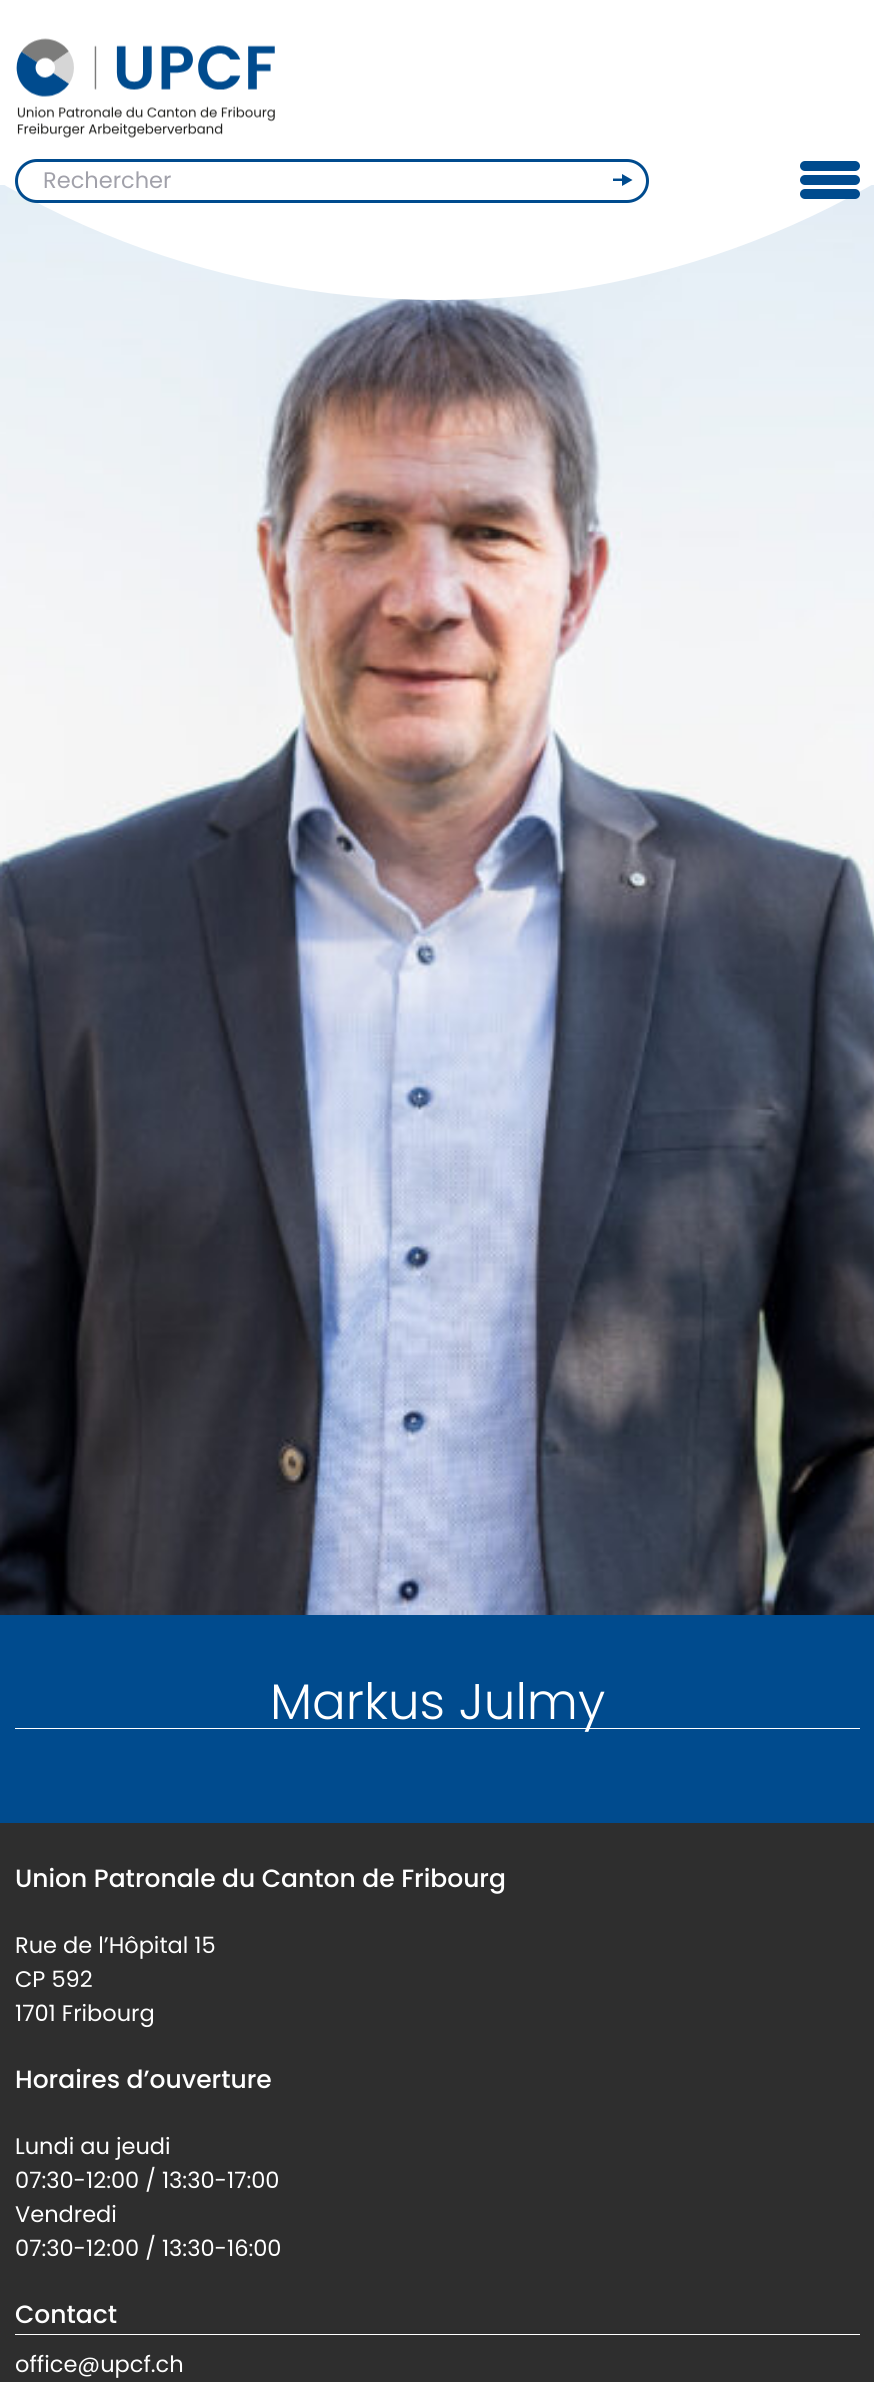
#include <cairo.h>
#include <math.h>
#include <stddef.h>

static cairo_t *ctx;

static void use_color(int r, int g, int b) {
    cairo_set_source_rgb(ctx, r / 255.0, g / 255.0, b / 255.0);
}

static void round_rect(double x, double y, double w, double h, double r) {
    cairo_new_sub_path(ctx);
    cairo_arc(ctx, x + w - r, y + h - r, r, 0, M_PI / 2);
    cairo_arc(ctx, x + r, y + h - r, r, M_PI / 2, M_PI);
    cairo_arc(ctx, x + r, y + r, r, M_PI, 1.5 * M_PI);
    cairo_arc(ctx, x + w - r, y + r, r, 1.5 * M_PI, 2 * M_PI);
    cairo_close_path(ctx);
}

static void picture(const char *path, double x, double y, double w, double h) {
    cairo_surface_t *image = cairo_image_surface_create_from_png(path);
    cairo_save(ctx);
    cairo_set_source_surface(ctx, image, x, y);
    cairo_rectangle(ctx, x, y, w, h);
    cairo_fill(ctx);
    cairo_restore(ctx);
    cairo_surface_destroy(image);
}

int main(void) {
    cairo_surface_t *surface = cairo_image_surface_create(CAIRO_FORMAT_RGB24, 874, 2382);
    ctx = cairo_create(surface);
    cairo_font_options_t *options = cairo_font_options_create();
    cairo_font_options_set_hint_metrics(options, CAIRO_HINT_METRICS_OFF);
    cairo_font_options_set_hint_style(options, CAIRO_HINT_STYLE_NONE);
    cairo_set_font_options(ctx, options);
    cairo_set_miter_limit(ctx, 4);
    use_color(255, 255, 255);
    cairo_paint(ctx);
    picture("img2.png", 0, 185, 874, 1430);
    use_color(255, 255, 255);
    round_rect(-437, -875, 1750, 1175, 875);
    cairo_fill(ctx);
    picture("img1.png", 16, 38, 259, 100);
    round_rect(16.5, 160.5, 631, 41, 20.5);
    cairo_fill_preserve(ctx);
    use_color(0, 75, 142);
    cairo_set_line_width(ctx, 3);
    cairo_stroke(ctx);
    cairo_select_font_face(ctx, "Poppins", CAIRO_FONT_SLANT_NORMAL, CAIRO_FONT_WEIGHT_NORMAL);
    cairo_set_font_size(ctx, 22.5);
    use_color(161, 161, 170);
    cairo_move_to(ctx, 43, 188);
    cairo_show_text(ctx, "Rechercher");
    cairo_save(ctx);
    cairo_rectangle(ctx, 613, 174, 21, 12);
    cairo_clip(ctx);
    use_color(0, 75, 142);
    cairo_new_path(ctx);
    cairo_move_to(ctx, 622, 174);
    cairo_line_to(ctx, 632.5, 180);
    cairo_line_to(ctx, 622, 186);
    cairo_line_to(ctx, 622, 181);
    cairo_line_to(ctx, 612.5, 181);
    cairo_line_to(ctx, 612.5, 178.5);
    cairo_line_to(ctx, 622, 178.5);
    cairo_close_path(ctx);
    cairo_fill(ctx);
    cairo_restore(ctx);
    use_color(0, 75, 142);
    round_rect(800, 161, 60, 10, 5);
    cairo_fill(ctx);
    round_rect(800, 175, 60, 10, 5);
    cairo_fill(ctx);
    round_rect(800, 189, 60, 10, 5);
    cairo_fill(ctx);
    cairo_rectangle(ctx, 0, 1615, 874, 208);
    cairo_fill(ctx);
    cairo_select_font_face(ctx, "Poppins Light", CAIRO_FONT_SLANT_NORMAL, CAIRO_FONT_WEIGHT_NORMAL);
    cairo_set_font_size(ctx, 50);
    use_color(255, 255, 255);
    cairo_move_to(ctx, 270, 1719);
    cairo_show_text(ctx, "Markus Julmy");
    cairo_rectangle(ctx, 15, 1728, 845, 1);
    cairo_fill(ctx);
    use_color(46, 46, 46);
    cairo_rectangle(ctx, 0, 1823, 874, 559);
    cairo_fill(ctx);
    cairo_select_font_face(ctx, "Poppins Medium", CAIRO_FONT_SLANT_NORMAL, CAIRO_FONT_WEIGHT_NORMAL);
    cairo_set_font_size(ctx, 25);
    use_color(255, 255, 255);
    cairo_move_to(ctx, 15, 1887);
    cairo_show_text(ctx, "Union Patronale du Canton de Fribourg");
    cairo_select_font_face(ctx, "Poppins", CAIRO_FONT_SLANT_NORMAL, CAIRO_FONT_WEIGHT_NORMAL);
    cairo_set_font_size(ctx, 22.5);
    cairo_move_to(ctx, 15, 1953);
    cairo_show_text(ctx, "Rue de l’Hôpital 15");
    cairo_move_to(ctx, 15, 1987);
    cairo_show_text(ctx, "CP 592");
    cairo_move_to(ctx, 15, 2021);
    cairo_show_text(ctx, "1701 Fribourg");
    cairo_select_font_face(ctx, "Poppins Medium", CAIRO_FONT_SLANT_NORMAL, CAIRO_FONT_WEIGHT_NORMAL);
    cairo_set_font_size(ctx, 25);
    cairo_move_to(ctx, 15, 2088);
    cairo_show_text(ctx, "Horaires d’ouverture");
    cairo_select_font_face(ctx, "Poppins", CAIRO_FONT_SLANT_NORMAL, CAIRO_FONT_WEIGHT_NORMAL);
    cairo_set_font_size(ctx, 22.5);
    cairo_move_to(ctx, 15, 2154);
    cairo_show_text(ctx, "Lundi au jeudi");
    cairo_move_to(ctx, 15, 2188);
    cairo_show_text(ctx, "07:30-12:00 / 13:30-17:00");
    cairo_move_to(ctx, 15, 2222);
    cairo_show_text(ctx, "Vendredi");
    cairo_move_to(ctx, 15, 2256);
    cairo_show_text(ctx, "07:30-12:00 / 13:30-16:00");
    cairo_rectangle(ctx, 15, 2334, 845, 1);
    cairo_fill(ctx);
    cairo_select_font_face(ctx, "Poppins Medium", CAIRO_FONT_SLANT_NORMAL, CAIRO_FONT_WEIGHT_NORMAL);
    cairo_set_font_size(ctx, 25);
    cairo_move_to(ctx, 15, 2323);
    cairo_show_text(ctx, "Contact");
    cairo_select_font_face(ctx, "Poppins", CAIRO_FONT_SLANT_NORMAL, CAIRO_FONT_WEIGHT_NORMAL);
    cairo_set_font_size(ctx, 22.5);
    cairo_move_to(ctx, 15, 2372);
    cairo_show_text(ctx, "office@upcf.ch");
    cairo_surface_write_to_png(surface, "result.png");
    cairo_font_options_destroy(options);
    cairo_destroy(ctx);
    cairo_surface_destroy(surface);
    return 0;
}
